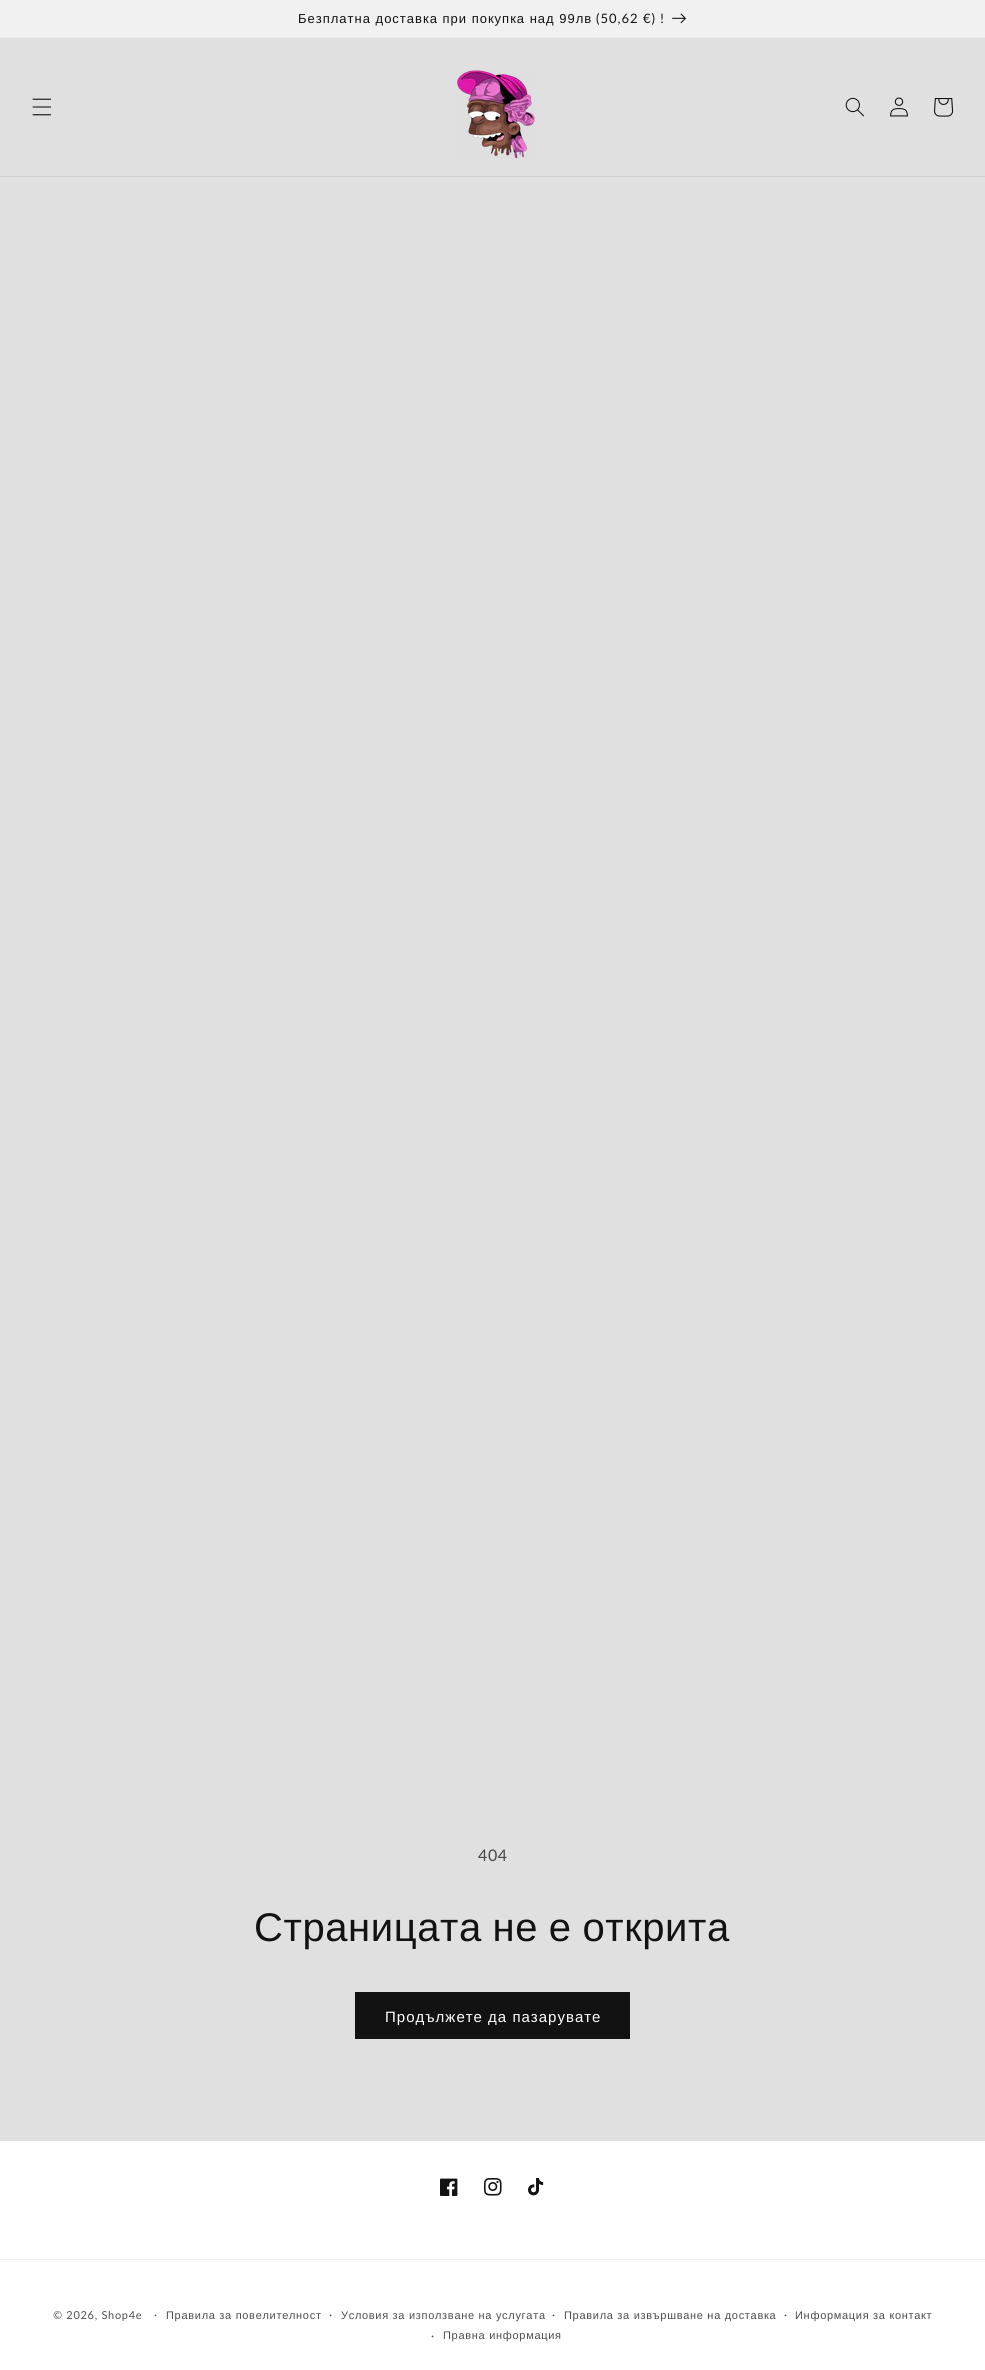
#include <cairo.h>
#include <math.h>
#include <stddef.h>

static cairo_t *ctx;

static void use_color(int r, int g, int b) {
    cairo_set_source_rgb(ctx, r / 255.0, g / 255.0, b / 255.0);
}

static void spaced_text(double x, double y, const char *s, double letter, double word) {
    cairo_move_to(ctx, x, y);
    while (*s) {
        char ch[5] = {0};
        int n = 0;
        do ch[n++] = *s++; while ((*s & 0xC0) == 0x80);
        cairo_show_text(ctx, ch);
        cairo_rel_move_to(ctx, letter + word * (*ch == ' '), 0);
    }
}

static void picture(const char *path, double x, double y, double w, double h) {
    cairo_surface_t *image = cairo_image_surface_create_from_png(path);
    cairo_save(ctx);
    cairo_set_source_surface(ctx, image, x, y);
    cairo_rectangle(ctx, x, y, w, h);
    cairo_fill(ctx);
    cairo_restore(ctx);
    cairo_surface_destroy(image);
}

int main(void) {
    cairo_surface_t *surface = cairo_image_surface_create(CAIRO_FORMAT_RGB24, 985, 2370);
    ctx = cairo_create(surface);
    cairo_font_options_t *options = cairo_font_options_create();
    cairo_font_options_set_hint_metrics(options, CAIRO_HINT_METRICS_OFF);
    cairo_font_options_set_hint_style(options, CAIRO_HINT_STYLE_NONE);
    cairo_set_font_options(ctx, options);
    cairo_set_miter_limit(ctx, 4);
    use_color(224, 224, 224);
    cairo_paint(ctx);
    use_color(236, 236, 236);
    cairo_rectangle(ctx, 0, 37, 985, 1);
    cairo_fill(ctx);
    use_color(241, 241, 241);
    cairo_rectangle(ctx, 0, 0, 985, 37);
    cairo_fill(ctx);
    cairo_select_font_face(ctx, "Liberation Sans", CAIRO_FONT_SLANT_NORMAL, CAIRO_FONT_WEIGHT_NORMAL);
    cairo_set_font_size(ctx, 13);
    use_color(18, 18, 18);
    spaced_text(298, 23, "Безплатна доставка при покупка над 99лв", 1, 0);
    cairo_select_font_face(ctx, "Lato", CAIRO_FONT_SLANT_NORMAL, CAIRO_FONT_WEIGHT_NORMAL);
    spaced_text(596, 23, "(50,62 €) !", 1, 0);
    picture("img1.png", 672, 13, 14, 11);
    use_color(208, 208, 208);
    cairo_rectangle(ctx, 0, 176, 985, 1);
    cairo_fill(ctx);
    picture("img2.png", 32, 98, 20, 18);
    picture("img3.png", 457, 70, 78, 88);
    picture("img4.png", 845, 97, 19, 20);
    picture("img5.png", 890, 97, 18, 20);
    picture("img6.png", 934, 98, 20, 19);
    cairo_set_font_size(ctx, 16);
    use_color(70, 70, 70);
    spaced_text(478, 1861, "404", 0.6, 0);
    cairo_select_font_face(ctx, "Liberation Sans", CAIRO_FONT_SLANT_NORMAL, CAIRO_FONT_WEIGHT_NORMAL);
    cairo_set_font_size(ctx, 40);
    use_color(18, 18, 18);
    spaced_text(254, 1941, "Страницата не е открита", 0.6, -1);
    cairo_rectangle(ctx, 355, 1992, 275, 47);
    cairo_fill(ctx);
    cairo_set_font_size(ctx, 15);
    use_color(255, 255, 255);
    spaced_text(385, 2022, "Продължете да пазарувате", 1, 0);
    cairo_rectangle(ctx, 0, 2141, 985, 229);
    cairo_fill(ctx);
    picture("img7.png", 440, 2178, 18, 18);
    picture("img8.png", 484, 2178, 18, 18);
    picture("img9.png", 528, 2178, 16, 18);
    use_color(236, 236, 236);
    cairo_rectangle(ctx, 0, 2259, 985, 1);
    cairo_fill(ctx);
    cairo_select_font_face(ctx, "Lato", CAIRO_FONT_SLANT_NORMAL, CAIRO_FONT_WEIGHT_NORMAL);
    cairo_set_font_size(ctx, 11);
    use_color(77, 77, 77);
    spaced_text(53, 2319, "© 2026, Shop4e", 0.7, 0);
    cairo_set_font_size(ctx, 12);
    spaced_text(154, 2319, "·", 0.7, 0);
    cairo_select_font_face(ctx, "Liberation Sans", CAIRO_FONT_SLANT_NORMAL, CAIRO_FONT_WEIGHT_NORMAL);
    cairo_set_font_size(ctx, 11);
    spaced_text(166, 2319, "Правила за повелителност", 0.7, 0);
    cairo_select_font_face(ctx, "Lato", CAIRO_FONT_SLANT_NORMAL, CAIRO_FONT_WEIGHT_NORMAL);
    cairo_set_font_size(ctx, 12);
    spaced_text(329, 2319, "·", 0.7, 0);
    cairo_select_font_face(ctx, "Liberation Sans", CAIRO_FONT_SLANT_NORMAL, CAIRO_FONT_WEIGHT_NORMAL);
    cairo_set_font_size(ctx, 11);
    spaced_text(341, 2319, "Условия за използване на услугата", 0.7, 0);
    cairo_select_font_face(ctx, "Lato", CAIRO_FONT_SLANT_NORMAL, CAIRO_FONT_WEIGHT_NORMAL);
    cairo_set_font_size(ctx, 12);
    spaced_text(552, 2319, "·", 0.7, 0);
    cairo_select_font_face(ctx, "Liberation Sans", CAIRO_FONT_SLANT_NORMAL, CAIRO_FONT_WEIGHT_NORMAL);
    cairo_set_font_size(ctx, 11);
    spaced_text(564, 2319, "Правила за извършване на доставка", 0.7, 0);
    cairo_select_font_face(ctx, "Lato", CAIRO_FONT_SLANT_NORMAL, CAIRO_FONT_WEIGHT_NORMAL);
    cairo_set_font_size(ctx, 12);
    spaced_text(784, 2319, "·", 0.7, 0);
    cairo_select_font_face(ctx, "Liberation Sans", CAIRO_FONT_SLANT_NORMAL, CAIRO_FONT_WEIGHT_NORMAL);
    cairo_set_font_size(ctx, 11);
    spaced_text(795, 2319, "Информация за контакт", 0.7, 0);
    cairo_select_font_face(ctx, "Lato", CAIRO_FONT_SLANT_NORMAL, CAIRO_FONT_WEIGHT_NORMAL);
    cairo_set_font_size(ctx, 12);
    spaced_text(431, 2340, "·", 0.7, 0);
    cairo_select_font_face(ctx, "Liberation Sans", CAIRO_FONT_SLANT_NORMAL, CAIRO_FONT_WEIGHT_NORMAL);
    cairo_set_font_size(ctx, 11);
    spaced_text(443, 2339, "Правна информация", 0.7, 0);
    cairo_surface_write_to_png(surface, "result.png");
    cairo_font_options_destroy(options);
    cairo_destroy(ctx);
    cairo_surface_destroy(surface);
    return 0;
}
